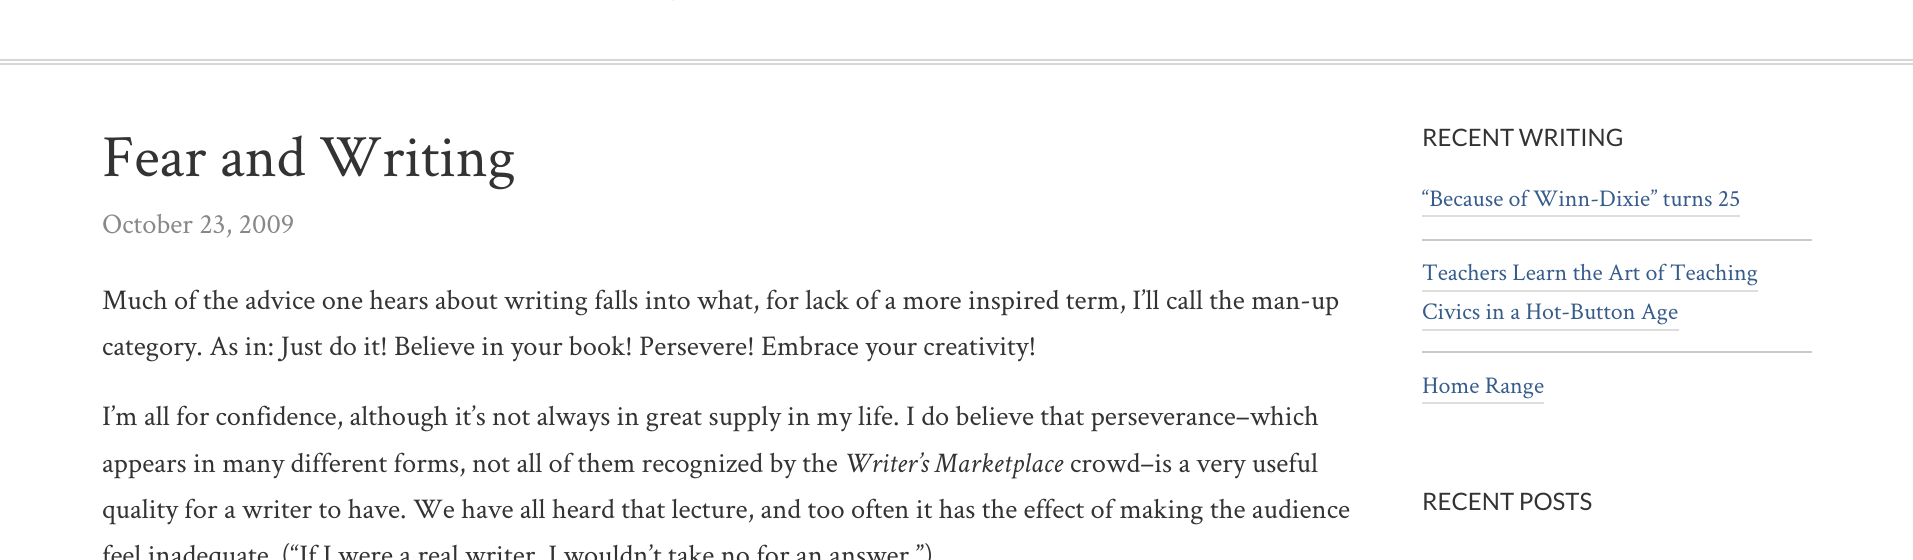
#include <cairo.h>
#include <math.h>
#include <stddef.h>

static cairo_t *ctx;

static void use_color(int r, int g, int b) {
    cairo_set_source_rgb(ctx, r / 255.0, g / 255.0, b / 255.0);
}

int main(void) {
    cairo_surface_t *surface = cairo_image_surface_create(CAIRO_FORMAT_RGB24, 1913, 560);
    ctx = cairo_create(surface);
    cairo_font_options_t *options = cairo_font_options_create();
    cairo_font_options_set_hint_metrics(options, CAIRO_HINT_METRICS_OFF);
    cairo_font_options_set_hint_style(options, CAIRO_HINT_STYLE_NONE);
    cairo_set_font_options(ctx, options);
    cairo_set_miter_limit(ctx, 4);
    use_color(255, 255, 255);
    cairo_paint(ctx);
    use_color(215, 215, 215);
    cairo_rectangle(ctx, 0, 59, 1913, 2);
    cairo_fill(ctx);
    cairo_rectangle(ctx, 0, 63, 1913, 2);
    cairo_fill(ctx);
    use_color(0, 76, 175);
    cairo_new_path(ctx);
    cairo_move_to(ctx, 678, -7);
    cairo_line_to(ctx, 673, 0.5);
    cairo_line_to(ctx, 668.5, -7);
    cairo_close_path(ctx);
    cairo_fill(ctx);
    cairo_select_font_face(ctx, "Crimson Text", CAIRO_FONT_SLANT_NORMAL, CAIRO_FONT_WEIGHT_NORMAL);
    cairo_set_font_size(ctx, 60);
    use_color(51, 51, 51);
    cairo_move_to(ctx, 102, 176);
    cairo_show_text(ctx, "Fear and Writing");
    cairo_set_font_size(ctx, 28.5);
    use_color(136, 136, 136);
    cairo_move_to(ctx, 102, 233);
    cairo_show_text(ctx, "October 23, 2009");
    use_color(51, 51, 51);
    cairo_move_to(ctx, 102, 309);
    cairo_show_text(ctx, "Much of the advice one hears about writing falls into what, for lack of a more inspired term, I’ll call the man-up");
    cairo_move_to(ctx, 102, 355);
    cairo_show_text(ctx, "category. As in: Just do it! Believe in your book! Persevere! Embrace your creativity!");
    cairo_move_to(ctx, 102, 425);
    cairo_show_text(ctx, "I’m all for confidence, although it’s not always in great supply in my life. I do believe that perseverance–which");
    cairo_move_to(ctx, 102, 472);
    cairo_show_text(ctx, "appears in many different forms, not all of them recognized by the");
    cairo_select_font_face(ctx, "Crimson Text", CAIRO_FONT_SLANT_ITALIC, CAIRO_FONT_WEIGHT_NORMAL);
    cairo_move_to(ctx, 844, 472);
    cairo_show_text(ctx, "Writer’s Marketplace");
    cairo_select_font_face(ctx, "Crimson Text", CAIRO_FONT_SLANT_NORMAL, CAIRO_FONT_WEIGHT_NORMAL);
    cairo_move_to(ctx, 1070, 472);
    cairo_show_text(ctx, "crowd–is a very useful");
    cairo_move_to(ctx, 102, 518);
    cairo_show_text(ctx, "quality for a writer to have. We have all heard that lecture, and too often it has the effect of making the audience");
    cairo_move_to(ctx, 102, 564);
    cairo_show_text(ctx, "feel inadequate. (“If I were a real writer, I wouldn’t take no for an answer.”)");
    cairo_select_font_face(ctx, "Lato", CAIRO_FONT_SLANT_NORMAL, CAIRO_FONT_WEIGHT_NORMAL);
    cairo_set_font_size(ctx, 24);
    cairo_move_to(ctx, 1422, 146);
    cairo_show_text(ctx, "RECENT WRITING");
    use_color(202, 202, 202);
    cairo_rectangle(ctx, 1422, 239, 390, 2);
    cairo_fill(ctx);
    cairo_select_font_face(ctx, "Crimson Text", CAIRO_FONT_SLANT_NORMAL, CAIRO_FONT_WEIGHT_NORMAL);
    use_color(55, 92, 139);
    cairo_move_to(ctx, 1422, 206);
    cairo_show_text(ctx, "“Because of Winn-Dixie” turns 25");
    use_color(221, 221, 221);
    cairo_rectangle(ctx, 1422, 215, 318, 2);
    cairo_fill(ctx);
    use_color(202, 202, 202);
    cairo_rectangle(ctx, 1422, 351, 390, 2);
    cairo_fill(ctx);
    use_color(55, 92, 139);
    cairo_move_to(ctx, 1422, 280);
    cairo_show_text(ctx, "Teachers Learn the Art of Teaching");
    use_color(221, 221, 221);
    cairo_rectangle(ctx, 1422, 290, 336, 2);
    cairo_fill(ctx);
    use_color(55, 92, 139);
    cairo_move_to(ctx, 1422, 319);
    cairo_show_text(ctx, "Civics in a Hot-Button Age");
    use_color(221, 221, 221);
    cairo_rectangle(ctx, 1422, 329, 257, 2);
    cairo_fill(ctx);
    use_color(55, 92, 139);
    cairo_move_to(ctx, 1422, 393);
    cairo_show_text(ctx, "Home Range");
    use_color(221, 221, 221);
    cairo_rectangle(ctx, 1422, 402, 122, 2);
    cairo_fill(ctx);
    cairo_select_font_face(ctx, "Lato", CAIRO_FONT_SLANT_NORMAL, CAIRO_FONT_WEIGHT_NORMAL);
    use_color(51, 51, 51);
    cairo_move_to(ctx, 1422, 510);
    cairo_show_text(ctx, "RECENT POSTS");
    cairo_surface_write_to_png(surface, "result.png");
    cairo_font_options_destroy(options);
    cairo_destroy(ctx);
    cairo_surface_destroy(surface);
    return 0;
}
